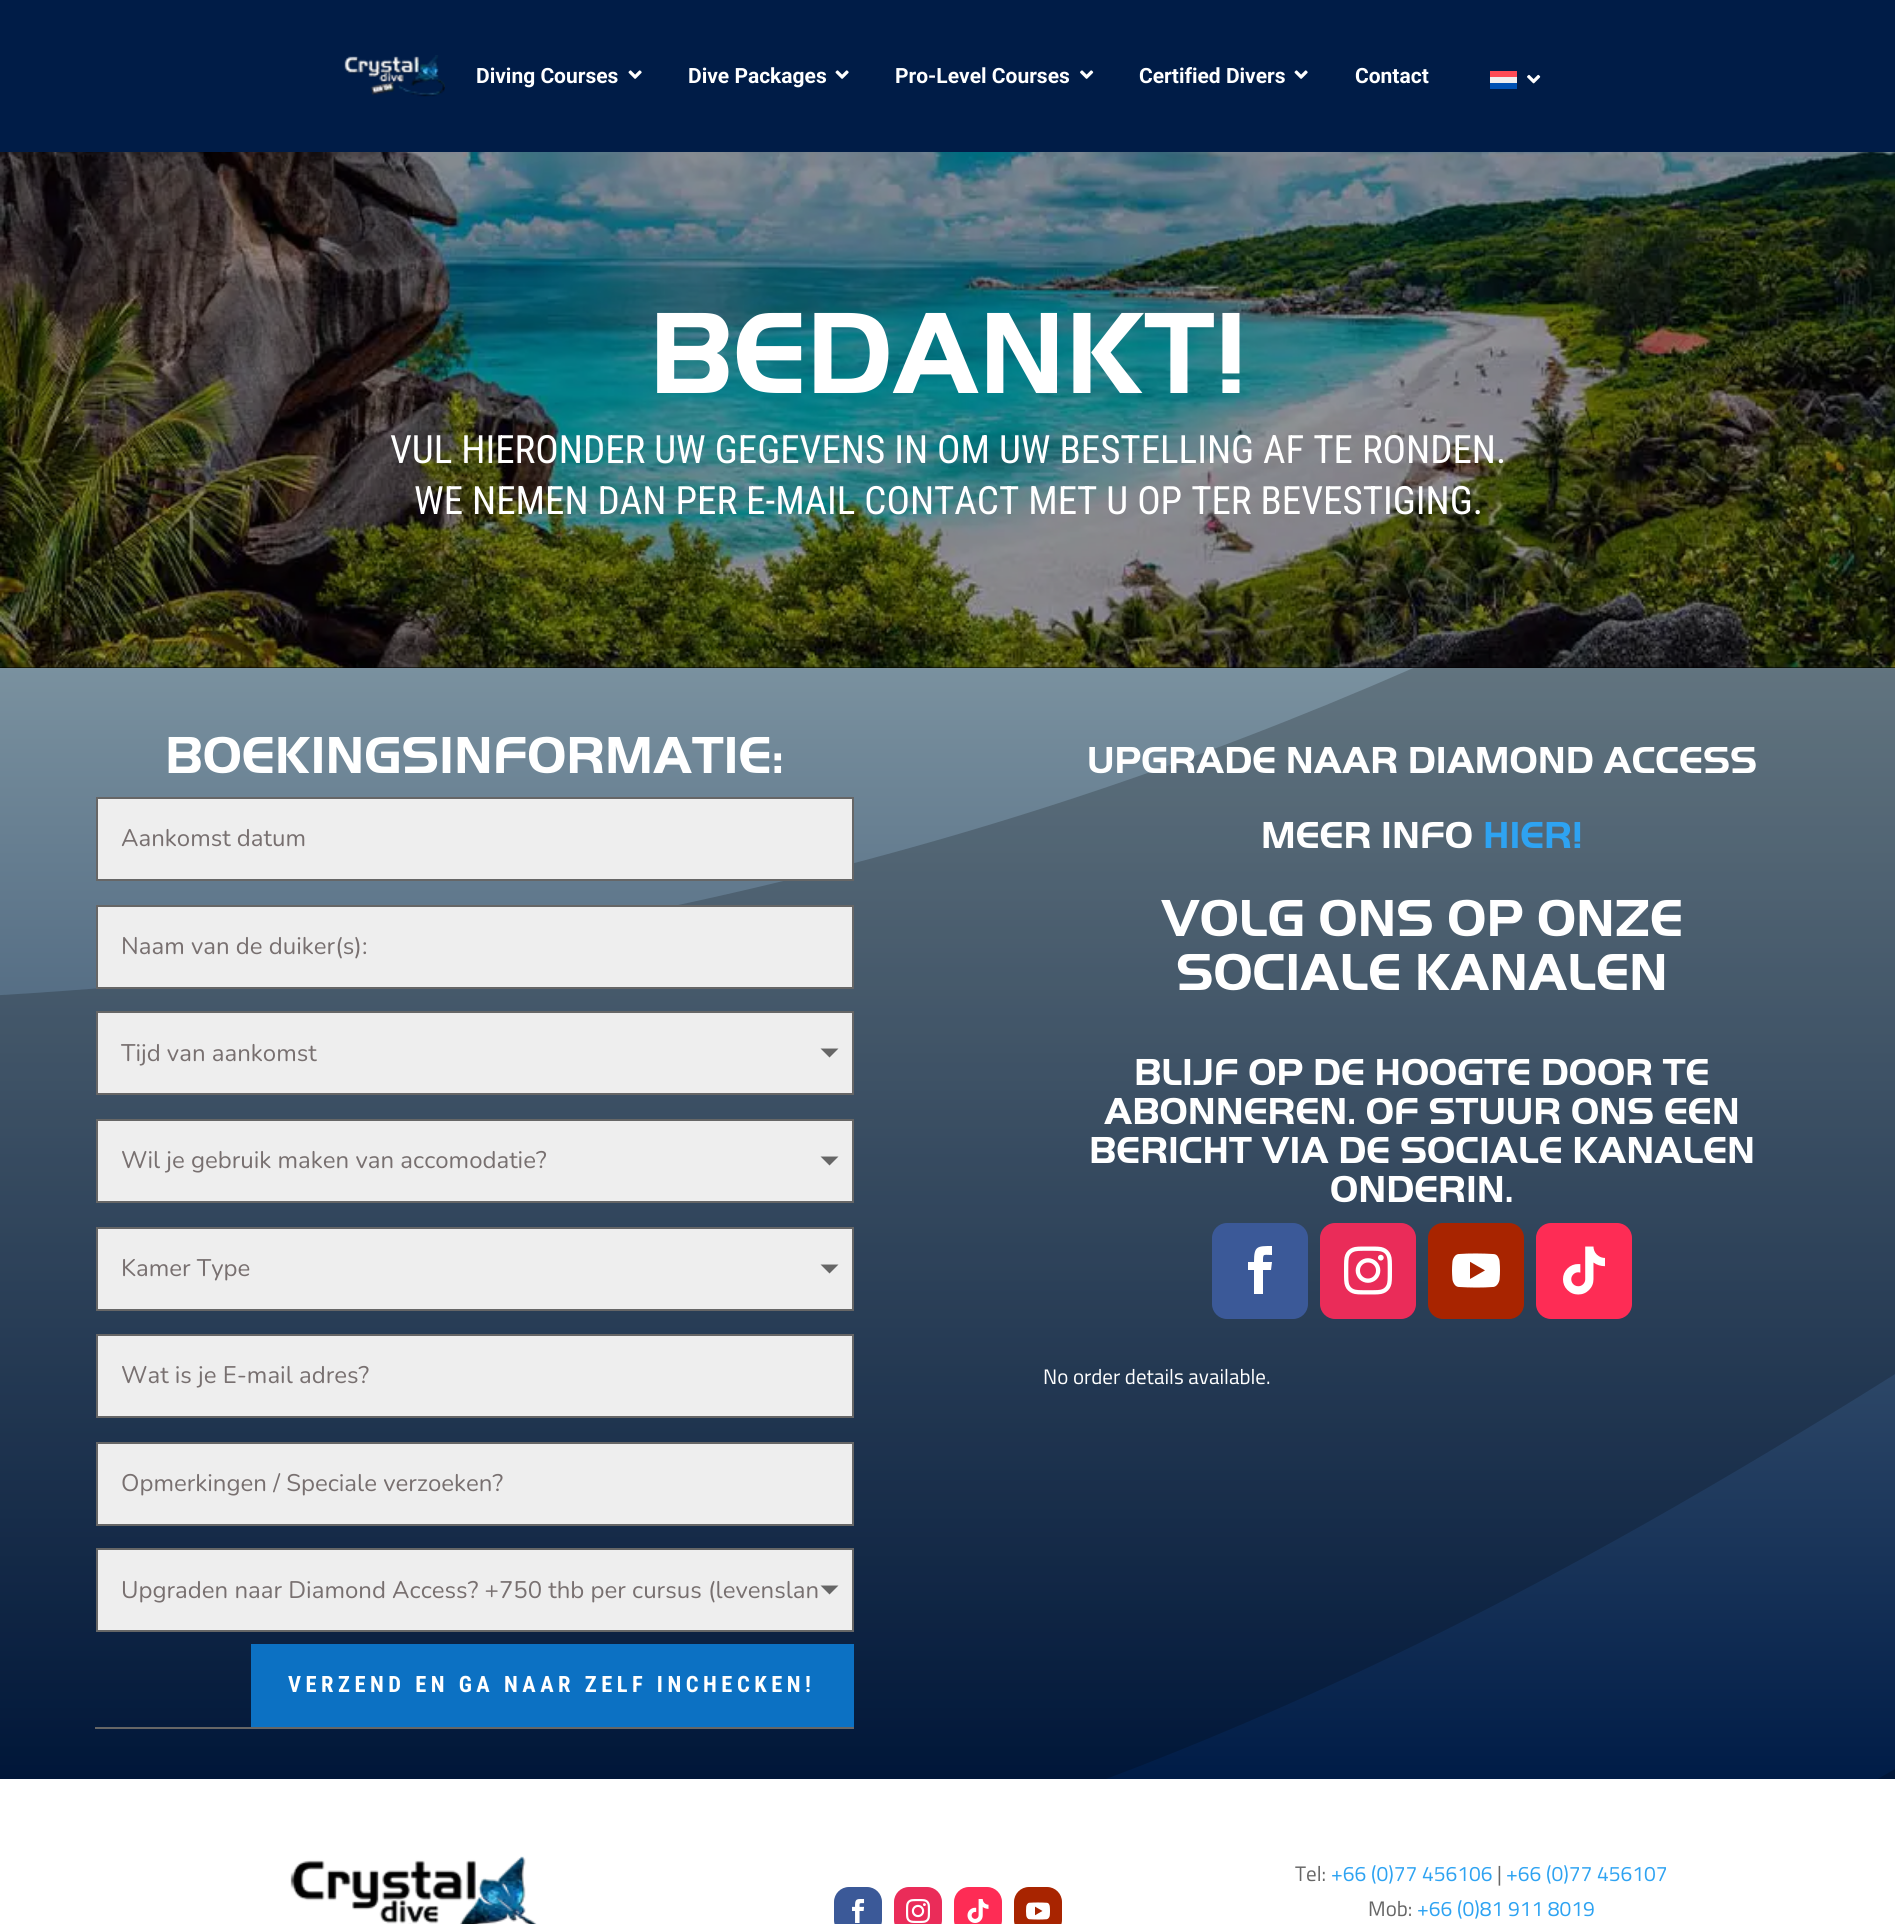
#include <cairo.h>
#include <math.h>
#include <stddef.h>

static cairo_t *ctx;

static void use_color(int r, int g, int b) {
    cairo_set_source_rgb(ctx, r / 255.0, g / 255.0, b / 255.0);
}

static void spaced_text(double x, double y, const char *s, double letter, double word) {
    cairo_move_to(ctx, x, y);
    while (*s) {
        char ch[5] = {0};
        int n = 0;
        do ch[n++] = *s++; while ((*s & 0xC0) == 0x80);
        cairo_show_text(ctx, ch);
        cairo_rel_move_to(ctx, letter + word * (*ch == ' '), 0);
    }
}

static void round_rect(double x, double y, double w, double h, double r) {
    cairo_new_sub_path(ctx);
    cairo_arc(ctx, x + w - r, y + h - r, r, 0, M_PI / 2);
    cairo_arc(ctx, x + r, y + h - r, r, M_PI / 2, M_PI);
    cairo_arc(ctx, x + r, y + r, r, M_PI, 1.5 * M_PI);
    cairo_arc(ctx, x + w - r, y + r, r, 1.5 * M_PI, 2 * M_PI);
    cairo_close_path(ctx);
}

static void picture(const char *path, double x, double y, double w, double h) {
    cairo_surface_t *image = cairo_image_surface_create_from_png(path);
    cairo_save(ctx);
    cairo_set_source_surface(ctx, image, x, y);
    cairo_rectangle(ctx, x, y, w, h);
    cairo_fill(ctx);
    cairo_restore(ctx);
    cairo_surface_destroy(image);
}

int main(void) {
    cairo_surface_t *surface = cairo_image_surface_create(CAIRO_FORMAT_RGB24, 1895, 1924);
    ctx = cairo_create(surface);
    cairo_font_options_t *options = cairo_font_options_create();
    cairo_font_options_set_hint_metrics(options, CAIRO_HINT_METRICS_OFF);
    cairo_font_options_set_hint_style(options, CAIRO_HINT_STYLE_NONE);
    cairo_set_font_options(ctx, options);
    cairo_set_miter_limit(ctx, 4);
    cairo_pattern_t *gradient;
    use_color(255, 255, 255);
    cairo_paint(ctx);
    use_color(0, 28, 71);
    cairo_rectangle(ctx, 0, 0, 1895, 152);
    cairo_fill(ctx);
    picture("img1.png", 344, 55, 101, 42);
    cairo_select_font_face(ctx, "Roboto", CAIRO_FONT_SLANT_NORMAL, CAIRO_FONT_WEIGHT_BOLD);
    cairo_set_font_size(ctx, 21);
    use_color(255, 255, 255);
    cairo_move_to(ctx, 476, 83);
    cairo_show_text(ctx, "Diving Courses");
    picture("img2.png", 628, 70, 14, 9);
    cairo_move_to(ctx, 688, 83);
    cairo_show_text(ctx, "Dive Packages");
    picture("img2.png", 835, 70, 14, 9);
    cairo_move_to(ctx, 895, 83);
    cairo_show_text(ctx, "Pro-Level Courses");
    picture("img3.png", 1080, 70, 14, 9);
    cairo_move_to(ctx, 1139, 83);
    cairo_show_text(ctx, "Certified Divers");
    picture("img2.png", 1294, 70, 14, 9);
    cairo_move_to(ctx, 1355, 83);
    cairo_show_text(ctx, "Contact");
    use_color(240, 240, 240);
    cairo_rectangle(ctx, 1490, 77, 27, 6);
    cairo_fill(ctx);
    use_color(0, 82, 180);
    cairo_rectangle(ctx, 1490, 83, 27, 6);
    cairo_fill(ctx);
    use_color(255, 75, 85);
    cairo_rectangle(ctx, 1490, 71, 27, 6);
    cairo_fill(ctx);
    picture("img4.png", 1527, 74, 14, 10);
    use_color(0, 0, 0);
    cairo_rectangle(ctx, 0, 667, 1895, 1);
    cairo_fill(ctx);
    picture("img5.png", 0, 152, 1895, 516);
    cairo_select_font_face(ctx, "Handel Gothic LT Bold", CAIRO_FONT_SLANT_NORMAL, CAIRO_FONT_WEIGHT_BOLD);
    cairo_set_font_size(ctx, 120);
    use_color(255, 255, 255);
    cairo_move_to(ctx, 649, 393);
    cairo_show_text(ctx, "BEDANKT!");
    cairo_select_font_face(ctx, "Roboto Condensed", CAIRO_FONT_SLANT_NORMAL, CAIRO_FONT_WEIGHT_NORMAL);
    cairo_set_font_size(ctx, 39);
    cairo_move_to(ctx, 390, 463);
    cairo_show_text(ctx, "VUL HIERONDER UW GEGEVENS IN OM UW BESTELLING AF TE RONDEN.");
    cairo_move_to(ctx, 414, 514);
    cairo_show_text(ctx, "WE NEMEN DAN PER E-MAIL CONTACT MET U OP TER BEVESTIGING.");
    gradient = cairo_pattern_create_linear(948, 667, 948, 1779);
    cairo_pattern_add_color_stop_rgba(gradient, 0, 1, 1, 1, 1);
    cairo_pattern_add_color_stop_rgba(gradient, 0, 0.478, 0.569, 0.624, 1);
    cairo_pattern_add_color_stop_rgba(gradient, 1, 0, 0.11, 0.278, 1);
    cairo_set_source(ctx, gradient);
    cairo_pattern_destroy(gradient);
    cairo_rectangle(ctx, 0, 668, 1895, 1111);
    cairo_fill(ctx);
    picture("img6.png", 0, 668, 1895, 1111);
    cairo_select_font_face(ctx, "Handel Gothic LT Bold", CAIRO_FONT_SLANT_NORMAL, CAIRO_FONT_WEIGHT_BOLD);
    cairo_set_font_size(ctx, 54);
    use_color(255, 255, 255);
    cairo_move_to(ctx, 165, 773);
    cairo_show_text(ctx, "BOEKINGSINFORMATIE:");
    use_color(238, 238, 238);
    cairo_rectangle(ctx, 97, 798, 756, 82);
    cairo_fill_preserve(ctx);
    use_color(102, 102, 102);
    cairo_stroke(ctx);
    cairo_select_font_face(ctx, "Nunito ExtraLight", CAIRO_FONT_SLANT_NORMAL, CAIRO_FONT_WEIGHT_NORMAL);
    cairo_set_font_size(ctx, 24);
    use_color(120, 112, 112);
    cairo_move_to(ctx, 121, 846);
    cairo_show_text(ctx, "Aankomst datum");
    use_color(238, 238, 238);
    cairo_rectangle(ctx, 97, 906, 756, 82);
    cairo_fill_preserve(ctx);
    use_color(102, 102, 102);
    cairo_stroke(ctx);
    use_color(120, 112, 112);
    cairo_move_to(ctx, 121, 954);
    cairo_show_text(ctx, "Naam van de duiker(s):");
    use_color(238, 238, 238);
    cairo_rectangle(ctx, 97, 1012, 756, 82);
    cairo_fill_preserve(ctx);
    use_color(102, 102, 102);
    cairo_stroke(ctx);
    use_color(120, 112, 112);
    cairo_move_to(ctx, 121, 1061);
    cairo_show_text(ctx, "Tijd van aankomst");
    use_color(102, 102, 102);
    cairo_new_path(ctx);
    cairo_move_to(ctx, 820.5, 1048.5);
    cairo_line_to(ctx, 838.5, 1048.5);
    cairo_line_to(ctx, 829.5, 1057.5);
    cairo_close_path(ctx);
    cairo_fill(ctx);
    use_color(238, 238, 238);
    cairo_rectangle(ctx, 97, 1120, 756, 82);
    cairo_fill_preserve(ctx);
    use_color(102, 102, 102);
    cairo_stroke(ctx);
    use_color(120, 112, 112);
    cairo_move_to(ctx, 121, 1168);
    cairo_show_text(ctx, "Wil je gebruik maken van accomodatie?");
    use_color(102, 102, 102);
    cairo_new_path(ctx);
    cairo_move_to(ctx, 820.5, 1156.5);
    cairo_line_to(ctx, 838.5, 1156.5);
    cairo_line_to(ctx, 829.5, 1165.5);
    cairo_close_path(ctx);
    cairo_fill(ctx);
    use_color(238, 238, 238);
    cairo_rectangle(ctx, 97, 1228, 756, 82);
    cairo_fill_preserve(ctx);
    use_color(102, 102, 102);
    cairo_stroke(ctx);
    use_color(120, 112, 112);
    cairo_move_to(ctx, 121, 1276);
    cairo_show_text(ctx, "Kamer Type");
    use_color(102, 102, 102);
    cairo_new_path(ctx);
    cairo_move_to(ctx, 820.5, 1264.5);
    cairo_line_to(ctx, 838.5, 1264.5);
    cairo_line_to(ctx, 829.5, 1273.5);
    cairo_close_path(ctx);
    cairo_fill(ctx);
    use_color(238, 238, 238);
    cairo_rectangle(ctx, 97, 1335, 756, 82);
    cairo_fill_preserve(ctx);
    use_color(102, 102, 102);
    cairo_stroke(ctx);
    use_color(120, 112, 112);
    cairo_move_to(ctx, 121, 1383);
    cairo_show_text(ctx, "Wat is je E-mail adres?");
    use_color(238, 238, 238);
    cairo_rectangle(ctx, 97, 1443, 756, 82);
    cairo_fill_preserve(ctx);
    use_color(102, 102, 102);
    cairo_stroke(ctx);
    use_color(120, 112, 112);
    cairo_move_to(ctx, 121, 1491);
    cairo_show_text(ctx, "Opmerkingen / Speciale verzoeken?");
    use_color(238, 238, 238);
    cairo_rectangle(ctx, 97, 1549, 756, 82);
    cairo_fill_preserve(ctx);
    use_color(102, 102, 102);
    cairo_stroke(ctx);
    use_color(120, 112, 112);
    cairo_move_to(ctx, 121, 1598);
    cairo_show_text(ctx, "Upgraden naar Diamond Access? +750 thb per cursus (levenslan");
    use_color(102, 102, 102);
    cairo_new_path(ctx);
    cairo_move_to(ctx, 820.5, 1585.5);
    cairo_line_to(ctx, 838.5, 1585.5);
    cairo_line_to(ctx, 829.5, 1594.5);
    cairo_close_path(ctx);
    cairo_fill(ctx);
    use_color(12, 113, 195);
    cairo_rectangle(ctx, 251, 1644, 603, 83);
    cairo_fill(ctx);
    cairo_select_font_face(ctx, "Roboto Condensed", CAIRO_FONT_SLANT_NORMAL, CAIRO_FONT_WEIGHT_BOLD);
    cairo_set_font_size(ctx, 22.5);
    use_color(255, 255, 255);
    spaced_text(288, 1692, "VERZEND EN GA NAAR ZELF INCHECKEN!", 4.5, 0);
    use_color(102, 102, 102);
    cairo_rectangle(ctx, 95, 1727, 759, 2);
    cairo_fill(ctx);
    cairo_select_font_face(ctx, "Handel Gothic LT Bold", CAIRO_FONT_SLANT_NORMAL, CAIRO_FONT_WEIGHT_BOLD);
    cairo_set_font_size(ctx, 39);
    use_color(255, 255, 255);
    cairo_move_to(ctx, 1087, 773);
    cairo_show_text(ctx, "UPGRADE NAAR DIAMOND ACCESS");
    cairo_move_to(ctx, 1261, 848);
    cairo_show_text(ctx, "MEER INFO");
    use_color(46, 163, 242);
    cairo_move_to(ctx, 1483, 848);
    cairo_show_text(ctx, "HIER!");
    cairo_set_font_size(ctx, 54);
    use_color(255, 255, 255);
    cairo_move_to(ctx, 1161, 936);
    cairo_show_text(ctx, "VOLG ONS OP ONZE");
    cairo_move_to(ctx, 1176, 990);
    cairo_show_text(ctx, "SOCIALE KANALEN");
    cairo_set_font_size(ctx, 39);
    cairo_move_to(ctx, 1134, 1085);
    cairo_show_text(ctx, "BLIJF OP DE HOOGTE DOOR TE");
    cairo_move_to(ctx, 1104, 1124);
    cairo_show_text(ctx, "ABONNEREN. OF STUUR ONS EEN");
    cairo_move_to(ctx, 1089, 1163);
    cairo_show_text(ctx, "BERICHT VIA DE SOCIALE KANALEN");
    cairo_move_to(ctx, 1330, 1202);
    cairo_show_text(ctx, "ONDERIN.");
    use_color(59, 89, 152);
    round_rect(1212, 1223, 96, 96, 15);
    cairo_fill(ctx);
    use_color(255, 255, 255);
    cairo_new_path(ctx);
    cairo_move_to(ctx, 1254, 1294);
    cairo_line_to(ctx, 1263, 1294);
    cairo_line_to(ctx, 1263, 1270);
    cairo_line_to(ctx, 1271, 1270);
    cairo_line_to(ctx, 1272, 1262);
    cairo_line_to(ctx, 1263, 1262);
    cairo_curve_to(ctx, 1263, 1253, 1263, 1255, 1272, 1255);
    cairo_line_to(ctx, 1272, 1246);
    cairo_curve_to(ctx, 1257, 1246, 1254, 1246, 1254, 1262);
    cairo_line_to(ctx, 1248, 1262);
    cairo_line_to(ctx, 1248, 1270);
    cairo_line_to(ctx, 1254, 1270);
    cairo_close_path(ctx);
    cairo_fill(ctx);
    use_color(234, 44, 89);
    round_rect(1320, 1223, 96, 96, 15);
    cairo_fill(ctx);
    picture("img7.png", 1344, 1246, 48, 49);
    use_color(168, 36, 0);
    round_rect(1428, 1223, 96, 96, 15);
    cairo_fill(ctx);
    picture("img8.png", 1452, 1253, 48, 35);
    use_color(254, 44, 85);
    round_rect(1536, 1223, 96, 96, 15);
    cairo_fill(ctx);
    picture("img9.png", 1563, 1246, 42, 49);
    cairo_select_font_face(ctx, "Titillium Web", CAIRO_FONT_SLANT_NORMAL, CAIRO_FONT_WEIGHT_NORMAL);
    cairo_set_font_size(ctx, 21);
    use_color(255, 255, 255);
    cairo_move_to(ctx, 1043, 1384);
    cairo_show_text(ctx, "No order details available.");
    picture("img10.png", 290, 1856, 247, 68);
    use_color(59, 89, 152);
    round_rect(834, 1887, 48, 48, 15);
    cairo_fill(ctx);
    picture("img11.png", 852, 1899, 13, 24);
    use_color(234, 44, 89);
    round_rect(894, 1887, 48, 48, 15);
    cairo_fill(ctx);
    picture("img12.png", 906, 1899, 24, 24);
    use_color(254, 44, 85);
    round_rect(954, 1887, 48, 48, 15);
    cairo_fill(ctx);
    picture("img13.png", 967, 1899, 22, 24);
    use_color(168, 36, 0);
    round_rect(1014, 1887, 48, 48, 15);
    cairo_fill(ctx);
    picture("img14.png", 1026, 1902, 24, 18);
    use_color(102, 102, 102);
    cairo_move_to(ctx, 1295, 1881);
    cairo_show_text(ctx, "Tel:");
    use_color(46, 163, 242);
    cairo_move_to(ctx, 1331, 1881);
    cairo_show_text(ctx, "+66 (0)77 456106");
    use_color(102, 102, 102);
    cairo_move_to(ctx, 1497, 1881);
    cairo_show_text(ctx, "|");
    use_color(46, 163, 242);
    cairo_move_to(ctx, 1506, 1881);
    cairo_show_text(ctx, "+66 (0)77 456107");
    use_color(102, 102, 102);
    cairo_move_to(ctx, 1368, 1916);
    cairo_show_text(ctx, "Mob:");
    use_color(46, 163, 242);
    cairo_move_to(ctx, 1417, 1916);
    cairo_show_text(ctx, "+66 (0)81 911 8019");
    cairo_surface_write_to_png(surface, "result.png");
    cairo_font_options_destroy(options);
    cairo_destroy(ctx);
    cairo_surface_destroy(surface);
    return 0;
}
